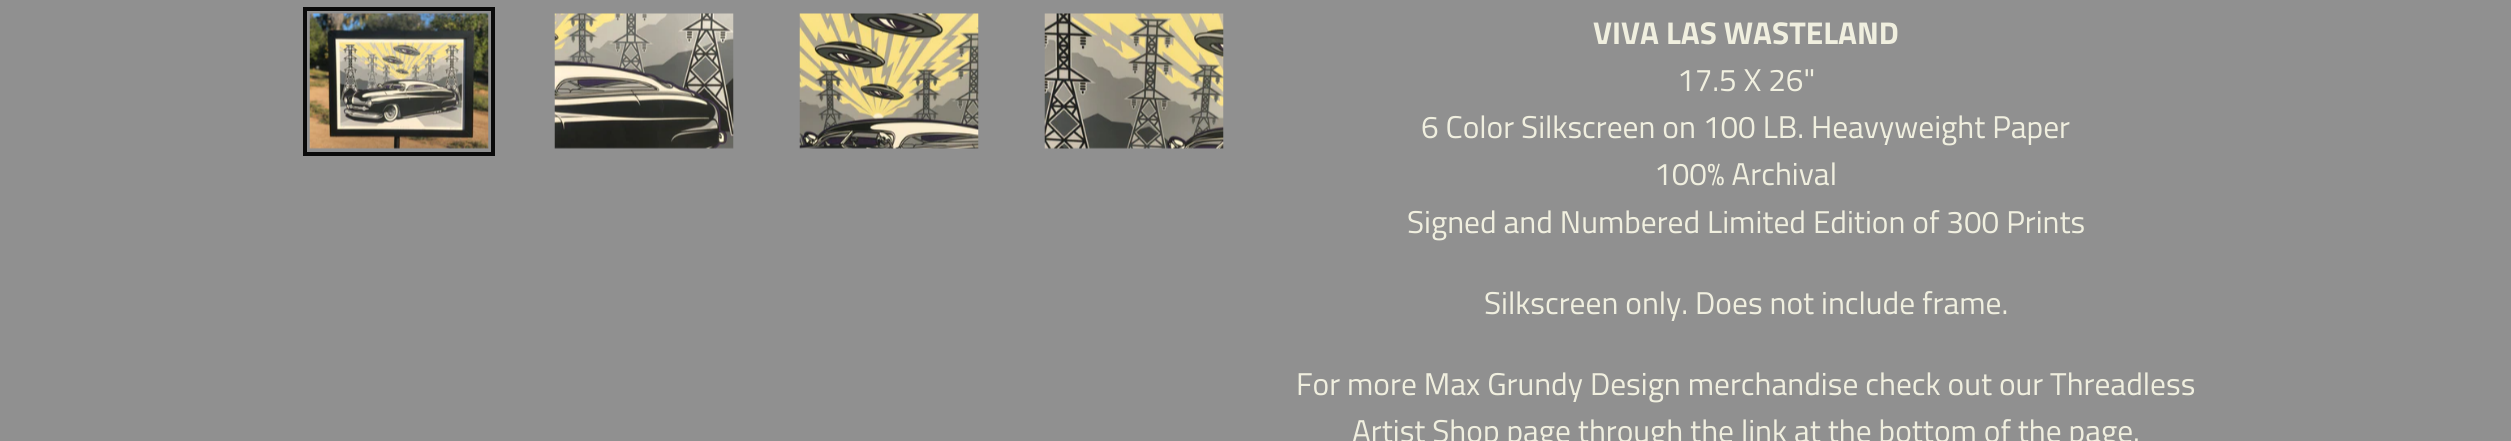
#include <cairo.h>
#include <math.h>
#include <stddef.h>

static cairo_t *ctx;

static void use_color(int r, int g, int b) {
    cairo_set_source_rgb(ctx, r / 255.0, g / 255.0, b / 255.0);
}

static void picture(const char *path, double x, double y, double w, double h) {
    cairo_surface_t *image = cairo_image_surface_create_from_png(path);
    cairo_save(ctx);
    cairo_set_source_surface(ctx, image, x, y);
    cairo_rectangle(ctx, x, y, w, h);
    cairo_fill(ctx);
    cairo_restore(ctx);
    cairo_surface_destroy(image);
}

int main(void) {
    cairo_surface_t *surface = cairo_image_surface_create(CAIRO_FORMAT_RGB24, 2511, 441);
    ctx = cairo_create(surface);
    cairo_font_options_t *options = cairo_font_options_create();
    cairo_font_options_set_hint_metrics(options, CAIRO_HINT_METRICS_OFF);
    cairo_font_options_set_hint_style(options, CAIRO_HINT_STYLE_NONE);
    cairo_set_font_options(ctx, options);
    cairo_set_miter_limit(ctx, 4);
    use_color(144, 144, 144);
    cairo_paint(ctx);
    cairo_rectangle(ctx, 305, 9, 188, 145);
    use_color(10, 10, 10);
    cairo_set_line_width(ctx, 4);
    cairo_stroke(ctx);
    picture("img1.png", 309, 13, 180, 136);
    picture("img2.png", 554, 13, 180, 136);
    picture("img3.png", 799, 13, 180, 136);
    picture("img4.png", 1044, 13, 180, 136);
    cairo_select_font_face(ctx, "Titillium Web", CAIRO_FONT_SLANT_NORMAL, CAIRO_FONT_WEIGHT_BOLD);
    cairo_set_font_size(ctx, 31.5);
    use_color(240, 239, 223);
    cairo_move_to(ctx, 1593, 44);
    cairo_show_text(ctx, "VIVA LAS WASTELAND");
    cairo_select_font_face(ctx, "Titillium Web", CAIRO_FONT_SLANT_NORMAL, CAIRO_FONT_WEIGHT_NORMAL);
    cairo_move_to(ctx, 1677, 91);
    cairo_show_text(ctx, "17.5 X 26\"");
    cairo_move_to(ctx, 1421, 138);
    cairo_show_text(ctx, "6 Color Silkscreen on 100 LB. Heavyweight Paper");
    cairo_move_to(ctx, 1654, 185);
    cairo_show_text(ctx, "100% Archival");
    cairo_move_to(ctx, 1407, 233);
    cairo_show_text(ctx, "Signed and Numbered Limited Edition of 300 Prints");
    cairo_move_to(ctx, 1484, 314);
    cairo_show_text(ctx, "Silkscreen only. Does not include frame.");
    cairo_move_to(ctx, 1296, 395);
    cairo_show_text(ctx, "For more Max Grundy Design merchandise check out our Threadless");
    cairo_move_to(ctx, 1352, 442);
    cairo_show_text(ctx, "Artist Shop page through the link at the bottom of the page.");
    cairo_surface_write_to_png(surface, "result.png");
    cairo_font_options_destroy(options);
    cairo_destroy(ctx);
    cairo_surface_destroy(surface);
    return 0;
}
